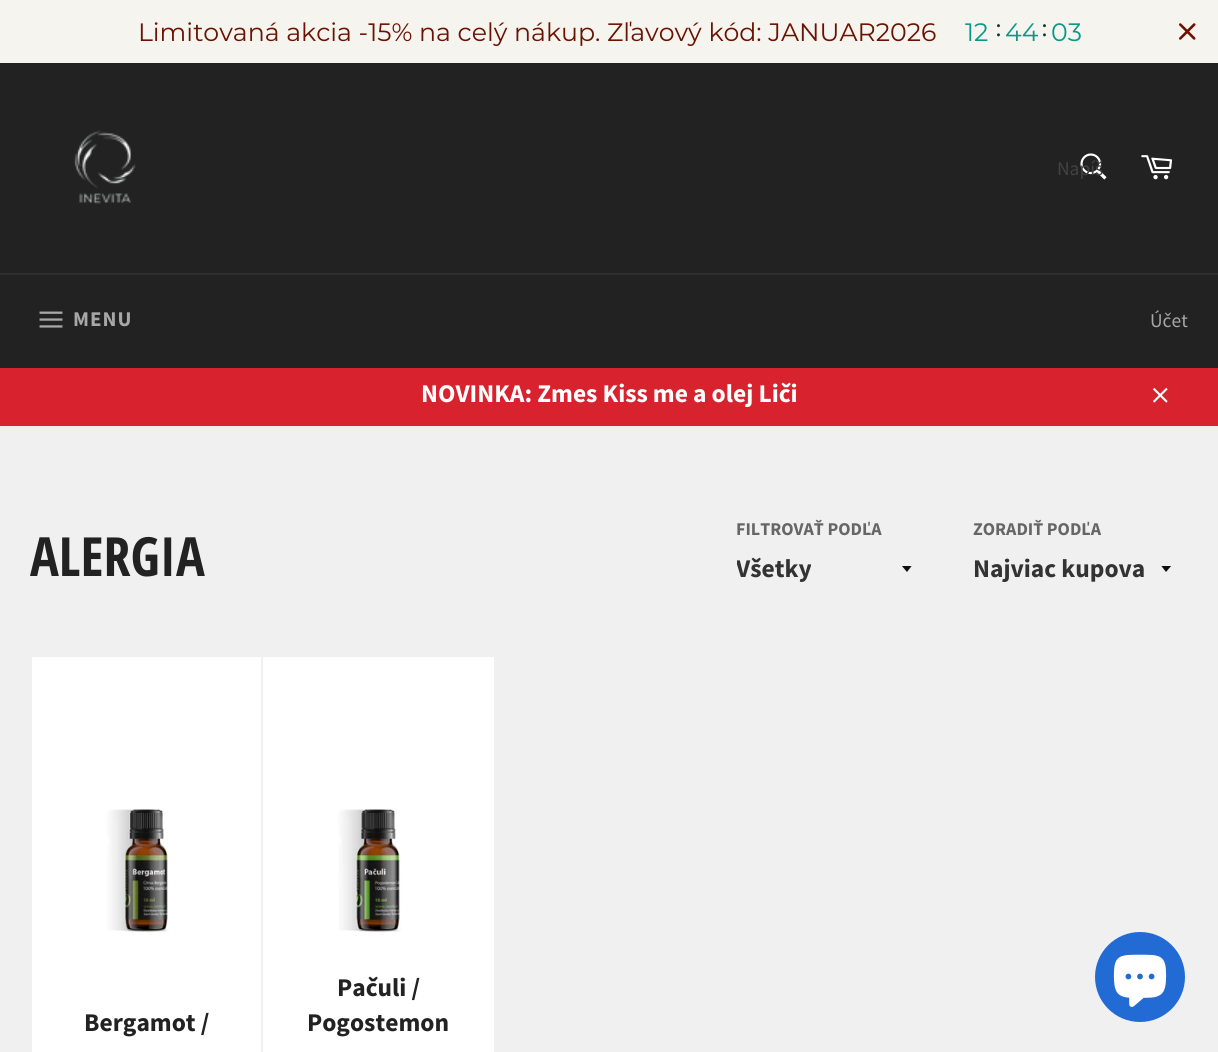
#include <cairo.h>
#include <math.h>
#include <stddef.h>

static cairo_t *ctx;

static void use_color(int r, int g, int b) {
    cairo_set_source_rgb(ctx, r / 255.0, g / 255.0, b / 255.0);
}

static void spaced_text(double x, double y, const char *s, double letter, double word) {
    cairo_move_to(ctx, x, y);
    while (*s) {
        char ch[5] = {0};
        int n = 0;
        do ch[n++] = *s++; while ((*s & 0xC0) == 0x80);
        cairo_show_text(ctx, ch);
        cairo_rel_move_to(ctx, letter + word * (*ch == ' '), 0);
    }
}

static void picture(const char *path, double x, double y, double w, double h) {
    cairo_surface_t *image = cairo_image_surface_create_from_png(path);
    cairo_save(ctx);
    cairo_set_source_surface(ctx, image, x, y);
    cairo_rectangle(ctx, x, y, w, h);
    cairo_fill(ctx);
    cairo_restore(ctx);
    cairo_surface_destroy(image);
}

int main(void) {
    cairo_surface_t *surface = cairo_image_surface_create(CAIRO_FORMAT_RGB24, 1218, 1052);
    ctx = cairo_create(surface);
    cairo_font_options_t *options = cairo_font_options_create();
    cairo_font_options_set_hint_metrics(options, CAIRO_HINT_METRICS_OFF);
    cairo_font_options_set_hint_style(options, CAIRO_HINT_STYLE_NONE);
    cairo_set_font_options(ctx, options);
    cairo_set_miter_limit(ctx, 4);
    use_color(240, 240, 240);
    cairo_paint(ctx);
    use_color(34, 34, 34);
    cairo_rectangle(ctx, 0, 63, 1218, 210);
    cairo_fill(ctx);
    use_color(245, 244, 239);
    cairo_rectangle(ctx, 0, 0, 1218, 63);
    cairo_fill(ctx);
    cairo_select_font_face(ctx, "Montserrat Thin", CAIRO_FONT_SLANT_NORMAL, CAIRO_FONT_WEIGHT_NORMAL);
    cairo_set_font_size(ctx, 25.2);
    use_color(107, 18, 0);
    cairo_move_to(ctx, 138, 41);
    cairo_show_text(ctx, "Limitovaná akcia -15% na celý nákup. Zľavový kód: JANUAR2026");
    use_color(9, 152, 135);
    cairo_move_to(ctx, 965, 41);
    cairo_show_text(ctx, "12");
    cairo_select_font_face(ctx, "Liberation Serif", CAIRO_FONT_SLANT_NORMAL, CAIRO_FONT_WEIGHT_NORMAL);
    use_color(11, 57, 51);
    cairo_move_to(ctx, 995, 36);
    cairo_show_text(ctx, ":");
    cairo_select_font_face(ctx, "Montserrat Thin", CAIRO_FONT_SLANT_NORMAL, CAIRO_FONT_WEIGHT_NORMAL);
    use_color(9, 152, 135);
    cairo_move_to(ctx, 1005, 41);
    cairo_show_text(ctx, "44");
    cairo_select_font_face(ctx, "Liberation Serif", CAIRO_FONT_SLANT_NORMAL, CAIRO_FONT_WEIGHT_NORMAL);
    use_color(11, 57, 51);
    cairo_move_to(ctx, 1041, 36);
    cairo_show_text(ctx, ":");
    cairo_select_font_face(ctx, "Montserrat Thin", CAIRO_FONT_SLANT_NORMAL, CAIRO_FONT_WEIGHT_NORMAL);
    use_color(9, 152, 135);
    cairo_move_to(ctx, 1051, 41);
    cairo_show_text(ctx, "03");
    picture("img1.png", 1179, 23, 17, 17);
    picture("img2.png", 74, 130, 62, 74);
    picture("img3.png", 1080, 153, 27, 27);
    cairo_select_font_face(ctx, "Source Sans Pro", CAIRO_FONT_SLANT_NORMAL, CAIRO_FONT_WEIGHT_NORMAL);
    cairo_set_font_size(ctx, 19.5);
    use_color(66, 66, 66);
    cairo_move_to(ctx, 1057, 175);
    cairo_show_text(ctx, "Napíš");
    picture("img4.png", 1141, 155, 31, 25);
    use_color(34, 34, 34);
    cairo_rectangle(ctx, 0, 275, 1218, 93);
    cairo_fill(ctx);
    use_color(47, 47, 47);
    cairo_rectangle(ctx, 0, 273, 1218, 2);
    cairo_fill(ctx);
    picture("img5.png", 39, 311, 24, 17);
    cairo_select_font_face(ctx, "Source Sans Pro", CAIRO_FONT_SLANT_NORMAL, CAIRO_FONT_WEIGHT_BOLD);
    cairo_set_font_size(ctx, 21);
    use_color(167, 167, 167);
    spaced_text(73, 326, "MENU", 1, 0);
    cairo_select_font_face(ctx, "Source Sans Pro", CAIRO_FONT_SLANT_NORMAL, CAIRO_FONT_WEIGHT_NORMAL);
    cairo_set_font_size(ctx, 19.5);
    cairo_move_to(ctx, 1150, 327);
    cairo_show_text(ctx, "Účet");
    use_color(216, 35, 47);
    cairo_rectangle(ctx, 0, 368, 1218, 58);
    cairo_fill(ctx);
    cairo_select_font_face(ctx, "Source Sans Pro", CAIRO_FONT_SLANT_NORMAL, CAIRO_FONT_WEIGHT_BOLD);
    cairo_set_font_size(ctx, 25.5);
    use_color(255, 255, 255);
    cairo_move_to(ctx, 421, 402);
    cairo_show_text(ctx, "NOVINKA: Zmes Kiss me a olej Liči");
    picture("img6.png", 1152, 387, 16, 16);
    cairo_select_font_face(ctx, "Open Sans Condensed", CAIRO_FONT_SLANT_NORMAL, CAIRO_FONT_WEIGHT_BOLD);
    cairo_set_font_size(ctx, 54);
    use_color(34, 34, 34);
    cairo_move_to(ctx, 30, 576);
    cairo_show_text(ctx, "ALERGIA");
    cairo_select_font_face(ctx, "Source Sans Pro", CAIRO_FONT_SLANT_NORMAL, CAIRO_FONT_WEIGHT_BOLD);
    cairo_set_font_size(ctx, 18);
    use_color(102, 102, 102);
    cairo_move_to(ctx, 736, 535);
    cairo_show_text(ctx, "FILTROVAŤ PODĽA");
    cairo_save(ctx);
    cairo_rectangle(ctx, 902, 566, 12, 7);
    cairo_clip(ctx);
    use_color(13, 14, 13);
    cairo_new_path(ctx);
    cairo_move_to(ctx, 901.5, 565.5);
    cairo_line_to(ctx, 907, 572);
    cairo_line_to(ctx, 912, 565.5);
    cairo_close_path(ctx);
    cairo_fill(ctx);
    cairo_restore(ctx);
    cairo_save(ctx);
    cairo_rectangle(ctx, 737, 552, 150, 35);
    cairo_clip(ctx);
    cairo_set_font_size(ctx, 25.5);
    use_color(51, 51, 51);
    cairo_move_to(ctx, 736, 577);
    cairo_show_text(ctx, "Všetky");
    cairo_restore(ctx);
    cairo_move_to(ctx, 973, 535);
    cairo_show_text(ctx, "ZORADIŤ PODĽA");
    cairo_save(ctx);
    cairo_rectangle(ctx, 1161, 566, 12, 7);
    cairo_clip(ctx);
    use_color(13, 14, 13);
    cairo_new_path(ctx);
    cairo_move_to(ctx, 1161, 565.5);
    cairo_line_to(ctx, 1166, 572);
    cairo_line_to(ctx, 1171.5, 565.5);
    cairo_close_path(ctx);
    cairo_fill(ctx);
    cairo_restore(ctx);
    cairo_set_font_size(ctx, 25.5);
    use_color(51, 51, 51);
    cairo_move_to(ctx, 973, 577);
    cairo_show_text(ctx, "Najviac kupova");
    use_color(255, 255, 255);
    cairo_rectangle(ctx, 32, 657, 229, 395);
    cairo_fill(ctx);
    picture("img7.png", 106, 809, 63, 124);
    use_color(34, 34, 34);
    cairo_move_to(ctx, 84, 1031);
    cairo_show_text(ctx, "Bergamot /");
    use_color(255, 255, 255);
    cairo_rectangle(ctx, 263, 657, 231, 395);
    cairo_fill(ctx);
    picture("img8.png", 337, 809, 65, 124);
    use_color(34, 34, 34);
    cairo_move_to(ctx, 337, 996);
    cairo_show_text(ctx, "Pačuli /");
    cairo_move_to(ctx, 307, 1031);
    cairo_show_text(ctx, "Pogostemon");
    use_color(34, 107, 212);
    cairo_new_path(ctx);
    cairo_arc(ctx, 1140, 977, 45, 0, 2 * M_PI);
    cairo_fill(ctx);
    picture("img9.png", 1113, 954, 54, 53);
    cairo_surface_write_to_png(surface, "result.png");
    cairo_font_options_destroy(options);
    cairo_destroy(ctx);
    cairo_surface_destroy(surface);
    return 0;
}
